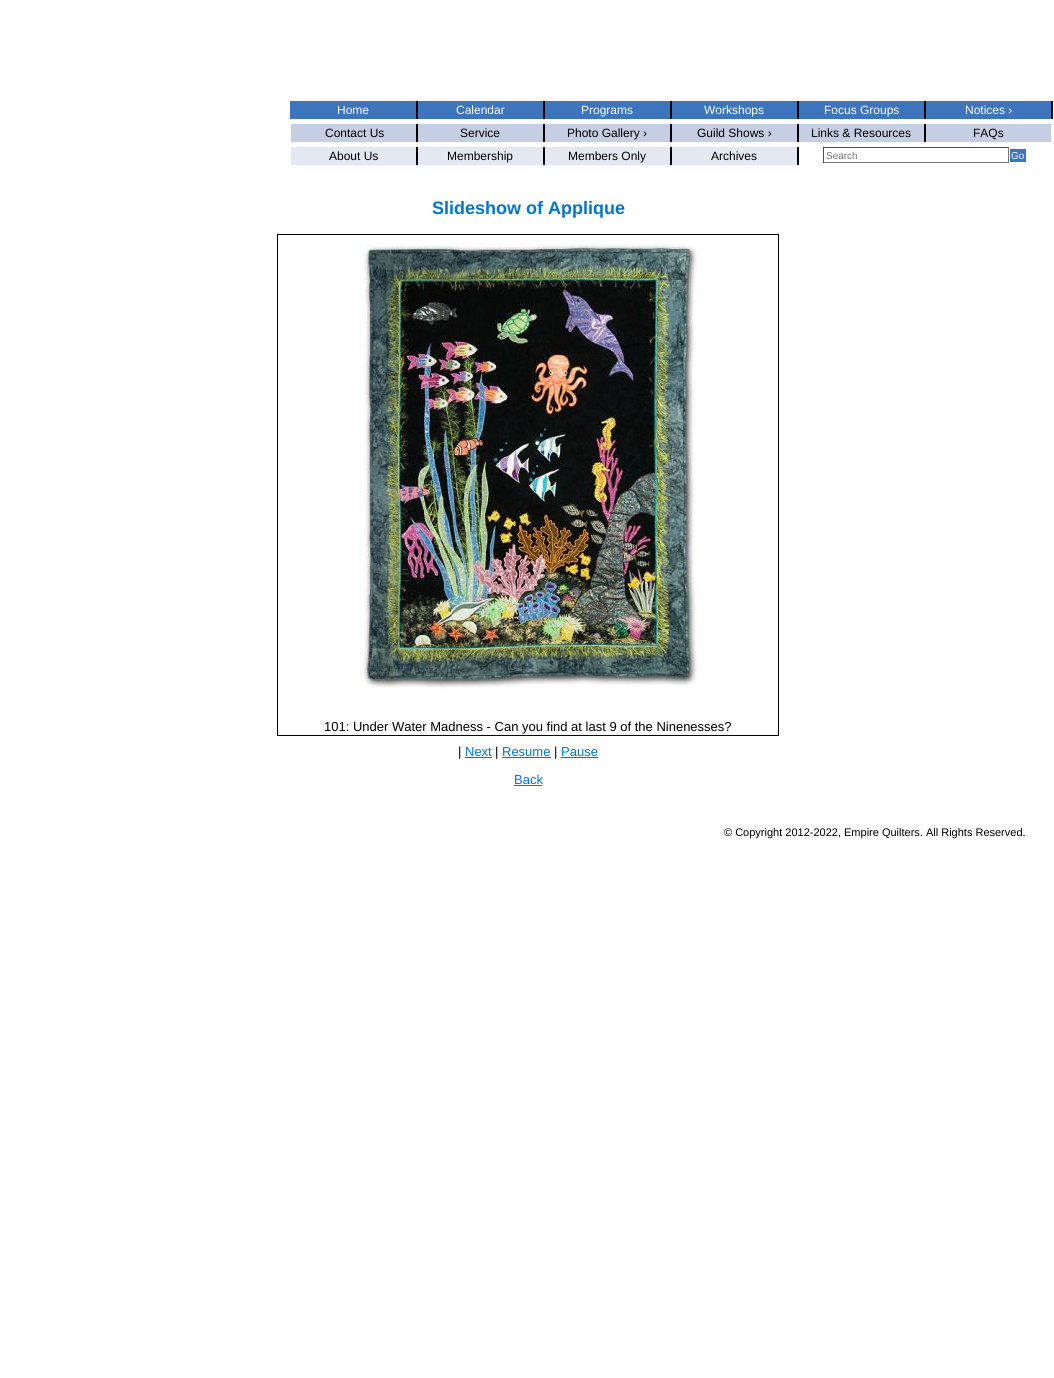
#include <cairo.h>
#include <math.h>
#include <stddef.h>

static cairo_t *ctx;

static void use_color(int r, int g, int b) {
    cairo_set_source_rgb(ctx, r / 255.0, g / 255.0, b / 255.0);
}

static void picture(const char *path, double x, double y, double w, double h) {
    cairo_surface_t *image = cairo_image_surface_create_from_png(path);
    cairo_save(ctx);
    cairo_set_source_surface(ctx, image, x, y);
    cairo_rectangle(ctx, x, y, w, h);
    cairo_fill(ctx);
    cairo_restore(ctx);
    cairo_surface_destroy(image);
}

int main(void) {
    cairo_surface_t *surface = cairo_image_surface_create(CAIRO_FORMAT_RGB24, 1054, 1378);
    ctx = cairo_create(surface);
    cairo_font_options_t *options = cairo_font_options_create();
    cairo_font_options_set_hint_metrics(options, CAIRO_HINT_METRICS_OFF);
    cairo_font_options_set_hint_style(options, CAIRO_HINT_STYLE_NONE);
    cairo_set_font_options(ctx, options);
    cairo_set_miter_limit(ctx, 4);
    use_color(255, 255, 255);
    cairo_paint(ctx);
    use_color(60, 116, 190);
    cairo_rectangle(ctx, 290, 101, 126, 18);
    cairo_fill(ctx);
    use_color(0, 0, 0);
    cairo_rectangle(ctx, 416, 101, 2, 18);
    cairo_fill(ctx);
    cairo_select_font_face(ctx, "Liberation Sans", CAIRO_FONT_SLANT_NORMAL, CAIRO_FONT_WEIGHT_NORMAL);
    cairo_set_font_size(ctx, 12);
    use_color(254, 252, 245);
    cairo_move_to(ctx, 337, 114);
    cairo_show_text(ctx, "Home");
    use_color(60, 116, 190);
    cairo_rectangle(ctx, 418, 101, 125, 18);
    cairo_fill(ctx);
    use_color(0, 0, 0);
    cairo_rectangle(ctx, 543, 101, 2, 18);
    cairo_fill(ctx);
    use_color(254, 252, 245);
    cairo_move_to(ctx, 456, 114);
    cairo_show_text(ctx, "Calendar");
    use_color(60, 116, 190);
    cairo_rectangle(ctx, 545, 101, 125, 18);
    cairo_fill(ctx);
    use_color(0, 0, 0);
    cairo_rectangle(ctx, 670, 101, 2, 18);
    cairo_fill(ctx);
    use_color(254, 252, 245);
    cairo_move_to(ctx, 581, 114);
    cairo_show_text(ctx, "Programs");
    use_color(60, 116, 190);
    cairo_rectangle(ctx, 672, 101, 125, 18);
    cairo_fill(ctx);
    use_color(0, 0, 0);
    cairo_rectangle(ctx, 797, 101, 2, 18);
    cairo_fill(ctx);
    use_color(254, 252, 245);
    cairo_move_to(ctx, 704, 114);
    cairo_show_text(ctx, "Workshops");
    use_color(60, 116, 190);
    cairo_rectangle(ctx, 799, 101, 125, 18);
    cairo_fill(ctx);
    use_color(0, 0, 0);
    cairo_rectangle(ctx, 924, 101, 2, 18);
    cairo_fill(ctx);
    use_color(254, 252, 245);
    cairo_move_to(ctx, 824, 114);
    cairo_show_text(ctx, "Focus Groups");
    use_color(60, 116, 190);
    cairo_rectangle(ctx, 926, 101, 125, 18);
    cairo_fill(ctx);
    use_color(0, 0, 0);
    cairo_rectangle(ctx, 1051, 101, 2, 18);
    cairo_fill(ctx);
    use_color(254, 252, 245);
    cairo_move_to(ctx, 965, 114);
    cairo_show_text(ctx, "Notices ›");
    use_color(198, 206, 227);
    cairo_rectangle(ctx, 291, 124, 125, 18);
    cairo_fill(ctx);
    use_color(0, 0, 0);
    cairo_rectangle(ctx, 416, 124, 2, 18);
    cairo_fill(ctx);
    cairo_move_to(ctx, 325, 137);
    cairo_show_text(ctx, "Contact Us");
    use_color(198, 206, 227);
    cairo_rectangle(ctx, 418, 124, 125, 18);
    cairo_fill(ctx);
    use_color(0, 0, 0);
    cairo_rectangle(ctx, 543, 124, 2, 18);
    cairo_fill(ctx);
    cairo_move_to(ctx, 460, 137);
    cairo_show_text(ctx, "Service");
    use_color(198, 206, 227);
    cairo_rectangle(ctx, 545, 124, 125, 18);
    cairo_fill(ctx);
    use_color(0, 0, 0);
    cairo_rectangle(ctx, 670, 124, 2, 18);
    cairo_fill(ctx);
    cairo_move_to(ctx, 567, 137);
    cairo_show_text(ctx, "Photo Gallery ›");
    use_color(198, 206, 227);
    cairo_rectangle(ctx, 672, 124, 125, 18);
    cairo_fill(ctx);
    use_color(0, 0, 0);
    cairo_rectangle(ctx, 797, 124, 2, 18);
    cairo_fill(ctx);
    cairo_move_to(ctx, 697, 137);
    cairo_show_text(ctx, "Guild Shows ›");
    use_color(198, 206, 227);
    cairo_rectangle(ctx, 799, 124, 125, 18);
    cairo_fill(ctx);
    use_color(0, 0, 0);
    cairo_rectangle(ctx, 924, 124, 2, 18);
    cairo_fill(ctx);
    cairo_move_to(ctx, 811, 137);
    cairo_show_text(ctx, "Links & Resources");
    use_color(198, 206, 227);
    cairo_rectangle(ctx, 926, 124, 125, 18);
    cairo_fill(ctx);
    use_color(0, 0, 0);
    cairo_move_to(ctx, 973, 137);
    cairo_show_text(ctx, "FAQs");
    use_color(228, 232, 241);
    cairo_rectangle(ctx, 291, 147, 125, 18);
    cairo_fill(ctx);
    use_color(0, 0, 0);
    cairo_rectangle(ctx, 416, 147, 2, 18);
    cairo_fill(ctx);
    cairo_move_to(ctx, 329, 160);
    cairo_show_text(ctx, "About Us");
    use_color(228, 232, 241);
    cairo_rectangle(ctx, 418, 147, 125, 18);
    cairo_fill(ctx);
    use_color(0, 0, 0);
    cairo_rectangle(ctx, 543, 147, 2, 18);
    cairo_fill(ctx);
    cairo_move_to(ctx, 447, 160);
    cairo_show_text(ctx, "Membership");
    use_color(228, 232, 241);
    cairo_rectangle(ctx, 545, 147, 125, 18);
    cairo_fill(ctx);
    use_color(0, 0, 0);
    cairo_rectangle(ctx, 670, 147, 2, 18);
    cairo_fill(ctx);
    cairo_move_to(ctx, 568, 160);
    cairo_show_text(ctx, "Members Only");
    use_color(228, 232, 241);
    cairo_rectangle(ctx, 672, 147, 125, 18);
    cairo_fill(ctx);
    use_color(0, 0, 0);
    cairo_rectangle(ctx, 797, 147, 2, 18);
    cairo_fill(ctx);
    cairo_move_to(ctx, 711, 160);
    cairo_show_text(ctx, "Archives");
    use_color(79, 79, 79);
    cairo_rectangle(ctx, 823, 147, 186, 1);
    cairo_fill(ctx);
    use_color(118, 118, 118);
    cairo_rectangle(ctx, 1008, 147, 1, 16);
    cairo_fill(ctx);
    cairo_rectangle(ctx, 823, 162, 186, 1);
    cairo_fill(ctx);
    use_color(79, 79, 79);
    cairo_rectangle(ctx, 823, 147, 1, 16);
    cairo_fill(ctx);
    cairo_set_font_size(ctx, 10);
    use_color(117, 117, 117);
    cairo_move_to(ctx, 826, 159);
    cairo_show_text(ctx, "Search");
    use_color(60, 116, 190);
    cairo_rectangle(ctx, 1010, 149, 16, 13);
    cairo_fill(ctx);
    use_color(255, 255, 255);
    cairo_move_to(ctx, 1011, 159);
    cairo_show_text(ctx, "Go");
    cairo_select_font_face(ctx, "Liberation Sans", CAIRO_FONT_SLANT_NORMAL, CAIRO_FONT_WEIGHT_BOLD);
    cairo_set_font_size(ctx, 18);
    use_color(0, 117, 206);
    cairo_move_to(ctx, 432, 214);
    cairo_show_text(ctx, "Slideshow of Applique");
    cairo_rectangle(ctx, 277.5, 234.5, 501, 501);
    use_color(0, 0, 0);
    cairo_set_line_width(ctx, 1);
    cairo_stroke(ctx);
    picture("img1.png", 357, 244, 340, 445);
    cairo_select_font_face(ctx, "Liberation Sans", CAIRO_FONT_SLANT_NORMAL, CAIRO_FONT_WEIGHT_NORMAL);
    cairo_set_font_size(ctx, 13);
    cairo_move_to(ctx, 324, 731);
    cairo_show_text(ctx, "101: Under Water Madness - Can you find at last 9 of the Ninenesses?");
    cairo_move_to(ctx, 458, 756);
    cairo_show_text(ctx, "|");
    use_color(0, 117, 206);
    cairo_move_to(ctx, 465, 756);
    cairo_show_text(ctx, "Next");
    cairo_rectangle(ctx, 465, 757, 27, 1);
    cairo_fill(ctx);
    use_color(0, 0, 0);
    cairo_move_to(ctx, 495, 756);
    cairo_show_text(ctx, "|");
    use_color(0, 117, 206);
    cairo_move_to(ctx, 502, 756);
    cairo_show_text(ctx, "Resume");
    cairo_rectangle(ctx, 502, 757, 49, 1);
    cairo_fill(ctx);
    use_color(0, 0, 0);
    cairo_move_to(ctx, 554, 756);
    cairo_show_text(ctx, "|");
    use_color(0, 117, 206);
    cairo_move_to(ctx, 561, 756);
    cairo_show_text(ctx, "Pause");
    cairo_rectangle(ctx, 561, 757, 37, 1);
    cairo_fill(ctx);
    cairo_move_to(ctx, 514, 784);
    cairo_show_text(ctx, "Back");
    cairo_rectangle(ctx, 514, 785, 28, 1);
    cairo_fill(ctx);
    cairo_set_font_size(ctx, 11);
    use_color(0, 0, 0);
    cairo_move_to(ctx, 724, 836);
    cairo_show_text(ctx, "© Copyright 2012-2022, Empire Quilters. All Rights Reserved.");
    cairo_surface_write_to_png(surface, "result.png");
    cairo_font_options_destroy(options);
    cairo_destroy(ctx);
    cairo_surface_destroy(surface);
    return 0;
}
